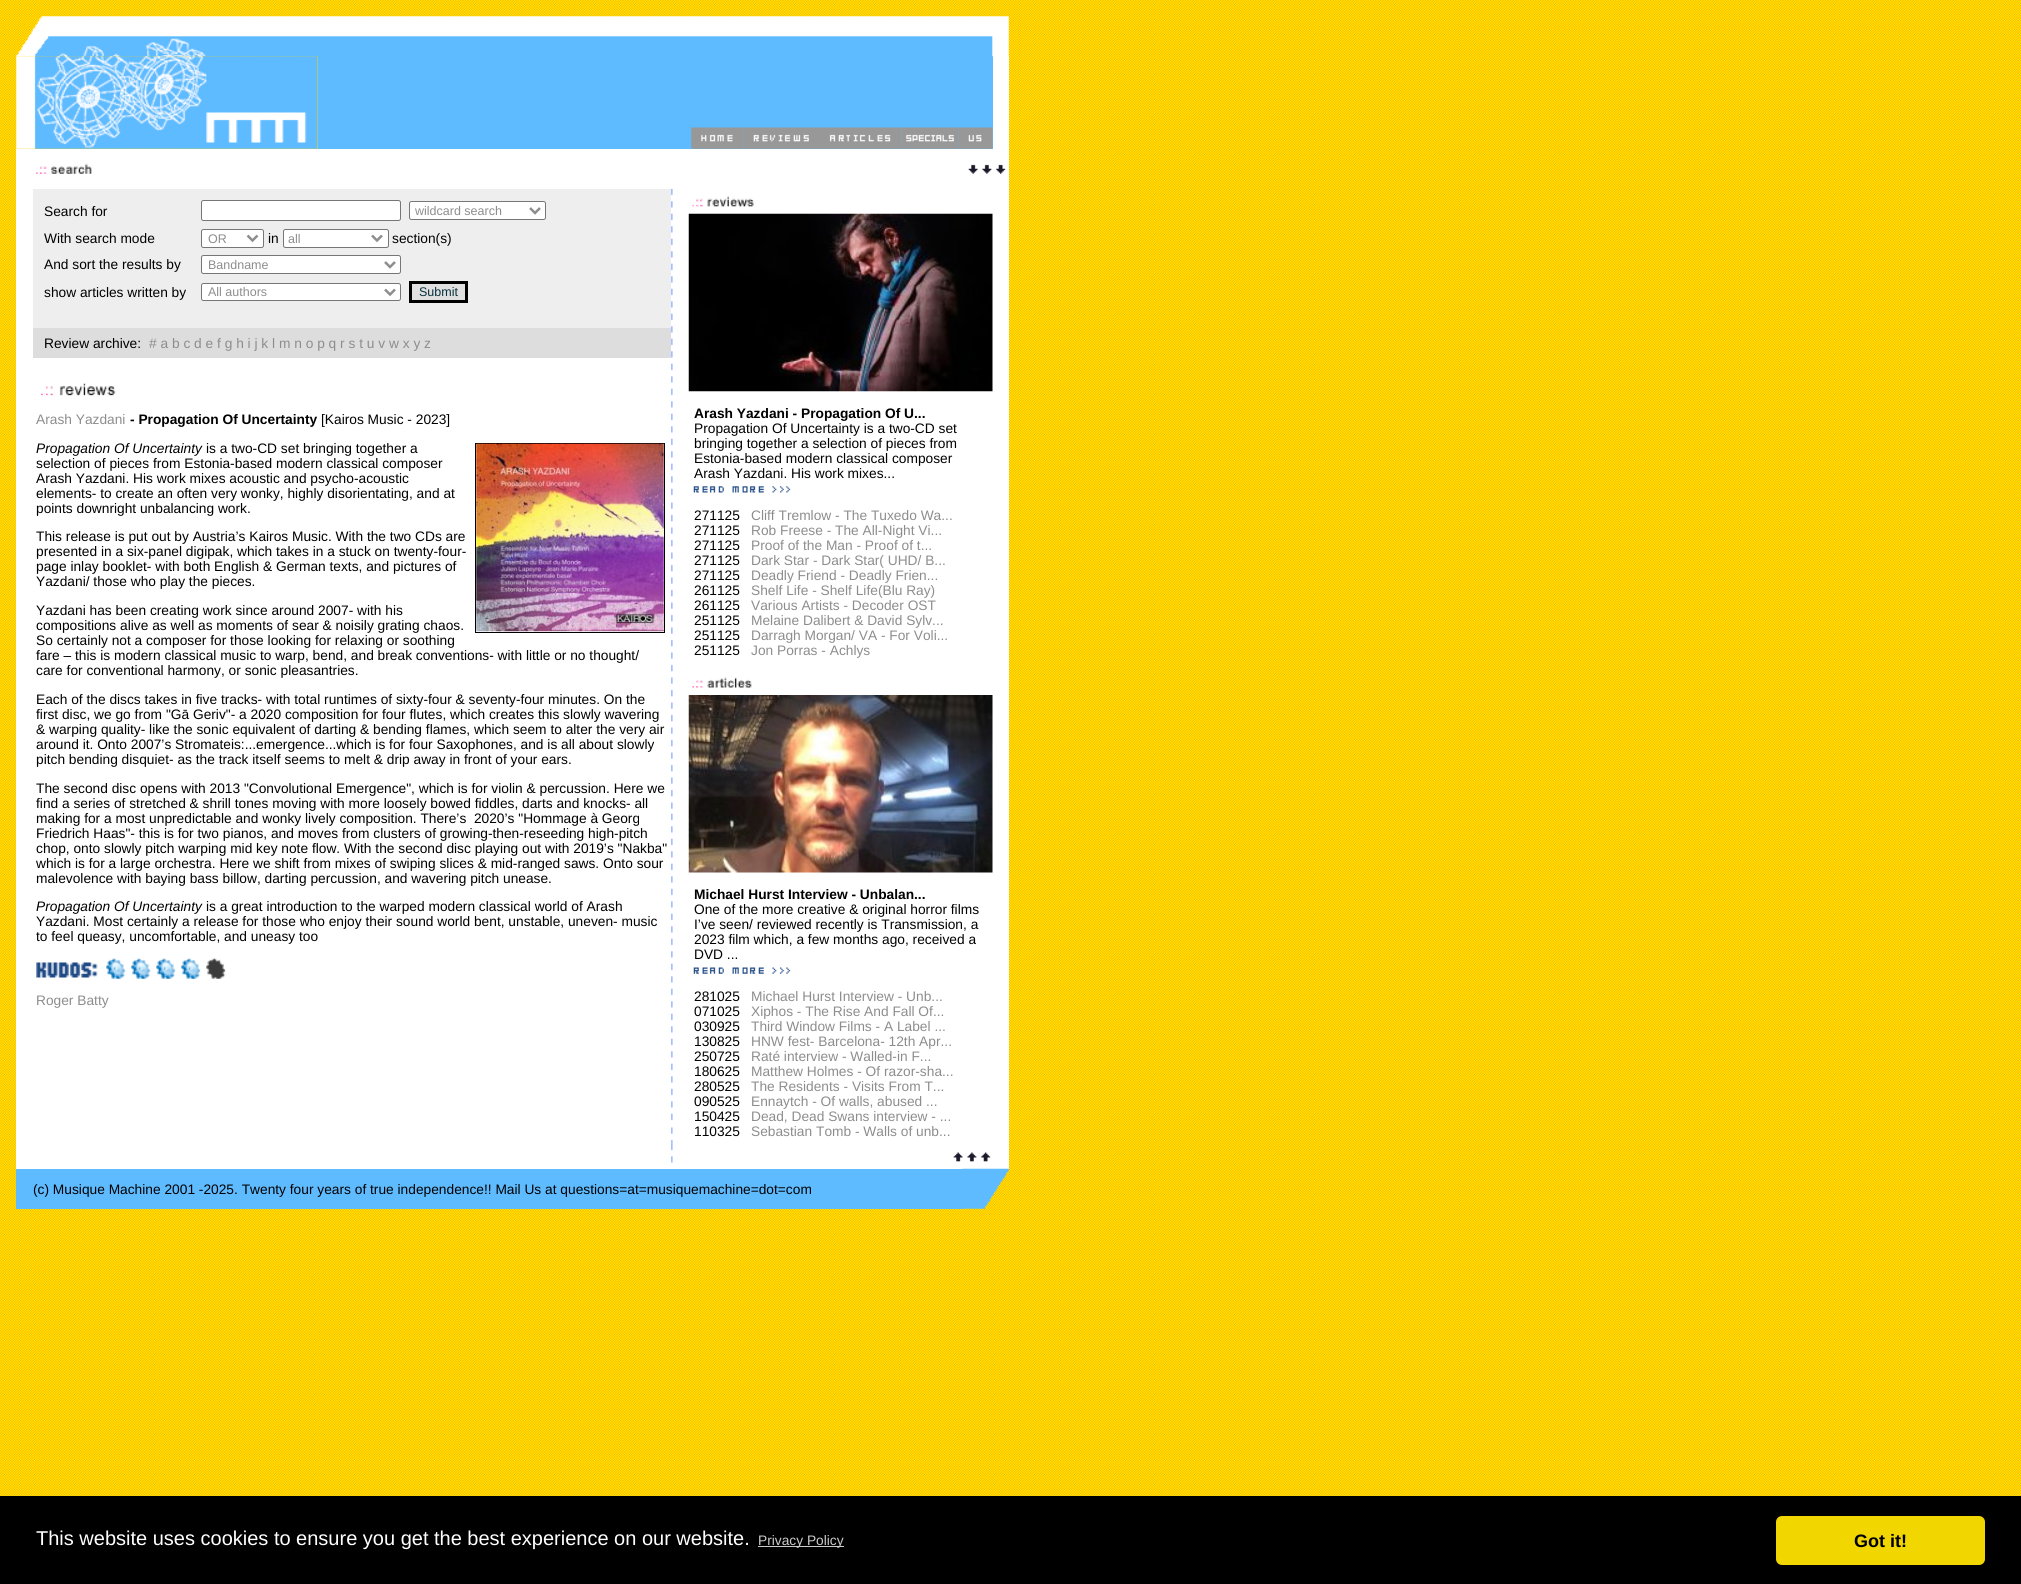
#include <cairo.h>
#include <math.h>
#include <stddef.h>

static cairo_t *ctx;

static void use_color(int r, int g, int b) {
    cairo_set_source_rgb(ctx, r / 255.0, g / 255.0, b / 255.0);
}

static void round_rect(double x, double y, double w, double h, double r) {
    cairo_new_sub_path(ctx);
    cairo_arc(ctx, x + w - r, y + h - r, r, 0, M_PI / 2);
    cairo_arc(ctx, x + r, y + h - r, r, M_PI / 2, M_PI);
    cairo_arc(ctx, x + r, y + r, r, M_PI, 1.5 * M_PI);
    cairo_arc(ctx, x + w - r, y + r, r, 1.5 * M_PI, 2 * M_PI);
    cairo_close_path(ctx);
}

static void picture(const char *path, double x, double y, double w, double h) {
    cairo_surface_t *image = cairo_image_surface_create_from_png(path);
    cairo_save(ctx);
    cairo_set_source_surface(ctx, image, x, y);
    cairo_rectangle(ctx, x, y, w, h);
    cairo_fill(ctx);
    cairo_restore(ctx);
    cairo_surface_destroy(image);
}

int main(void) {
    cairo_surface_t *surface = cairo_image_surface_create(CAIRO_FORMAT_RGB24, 2021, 1584);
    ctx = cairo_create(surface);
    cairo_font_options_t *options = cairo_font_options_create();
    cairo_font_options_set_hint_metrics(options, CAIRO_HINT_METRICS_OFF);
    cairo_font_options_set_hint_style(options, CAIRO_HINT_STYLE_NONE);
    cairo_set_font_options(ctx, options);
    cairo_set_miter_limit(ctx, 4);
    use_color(255, 255, 255);
    cairo_paint(ctx);
    picture("img1.png", 0, 0, 2021, 1496);
    use_color(94, 187, 255);
    cairo_rectangle(ctx, 318, 56, 675, 93);
    cairo_fill(ctx);
    use_color(255, 255, 255);
    cairo_rectangle(ctx, 993, 56, 16, 93);
    cairo_fill(ctx);
    picture("img2.png", 16, 16, 993, 41);
    picture("img3.png", 16, 56, 302, 93);
    picture("img4.png", 691, 127, 53, 22);
    picture("img5.png", 743, 127, 77, 22);
    picture("img6.png", 820, 127, 82, 22);
    picture("img7.png", 901, 127, 58, 22);
    picture("img8.png", 958, 127, 35, 22);
    cairo_rectangle(ctx, 16, 149, 993, 7);
    cairo_fill(ctx);
    cairo_rectangle(ctx, 16, 156, 993, 25);
    cairo_fill(ctx);
    picture("img9.png", 36, 163, 56, 11);
    picture("img10.png", 968, 164, 38, 10);
    cairo_rectangle(ctx, 16, 181, 993, 8);
    cairo_fill(ctx);
    cairo_rectangle(ctx, 16, 189, 993, 980);
    cairo_fill(ctx);
    use_color(238, 238, 238);
    cairo_rectangle(ctx, 33, 189, 638, 139);
    cairo_fill(ctx);
    cairo_select_font_face(ctx, "Liberation Sans", CAIRO_FONT_SLANT_NORMAL, CAIRO_FONT_WEIGHT_NORMAL);
    cairo_set_font_size(ctx, 13.75);
    use_color(0, 0, 0);
    cairo_move_to(ctx, 44, 216);
    cairo_show_text(ctx, "Search for");
    use_color(255, 255, 255);
    round_rect(201.5, 200.5, 199, 20, 2);
    cairo_fill_preserve(ctx);
    use_color(118, 118, 118);
    cairo_set_line_width(ctx, 1);
    cairo_stroke(ctx);
    use_color(255, 255, 255);
    round_rect(409.5, 201.5, 136, 18, 2);
    cairo_fill_preserve(ctx);
    use_color(118, 118, 118);
    cairo_stroke(ctx);
    cairo_new_path(ctx);
    cairo_move_to(ctx, 530, 208);
    cairo_line_to(ctx, 535, 213);
    cairo_line_to(ctx, 540, 208);
    use_color(141, 141, 141);
    cairo_set_line_width(ctx, 2.5);
    cairo_stroke(ctx);
    cairo_set_font_size(ctx, 12.5);
    cairo_move_to(ctx, 415, 215);
    cairo_show_text(ctx, "wildcard search");
    cairo_set_font_size(ctx, 13.75);
    use_color(0, 0, 0);
    cairo_move_to(ctx, 44, 243);
    cairo_show_text(ctx, "With search mode");
    use_color(255, 255, 255);
    round_rect(201.5, 229.5, 62, 18, 2);
    cairo_fill_preserve(ctx);
    use_color(118, 118, 118);
    cairo_set_line_width(ctx, 1);
    cairo_stroke(ctx);
    cairo_new_path(ctx);
    cairo_move_to(ctx, 247.5, 235.5);
    cairo_line_to(ctx, 252.5, 240.5);
    cairo_line_to(ctx, 257.5, 235.5);
    use_color(141, 141, 141);
    cairo_set_line_width(ctx, 2.5);
    cairo_stroke(ctx);
    cairo_set_font_size(ctx, 12.5);
    cairo_move_to(ctx, 208, 243);
    cairo_show_text(ctx, "OR");
    cairo_set_font_size(ctx, 13.75);
    use_color(0, 0, 0);
    cairo_move_to(ctx, 268, 243);
    cairo_show_text(ctx, "in");
    use_color(255, 255, 255);
    round_rect(283.5, 229.5, 105, 18, 2);
    cairo_fill_preserve(ctx);
    use_color(118, 118, 118);
    cairo_set_line_width(ctx, 1);
    cairo_stroke(ctx);
    cairo_new_path(ctx);
    cairo_move_to(ctx, 372, 235.5);
    cairo_line_to(ctx, 377, 240.5);
    cairo_line_to(ctx, 382, 235.5);
    use_color(141, 141, 141);
    cairo_set_line_width(ctx, 2.5);
    cairo_stroke(ctx);
    cairo_set_font_size(ctx, 12.5);
    cairo_move_to(ctx, 288, 243);
    cairo_show_text(ctx, "all");
    cairo_set_font_size(ctx, 13.75);
    use_color(0, 0, 0);
    cairo_move_to(ctx, 392, 243);
    cairo_show_text(ctx, "section(s)");
    cairo_move_to(ctx, 44, 269);
    cairo_show_text(ctx, "And sort the results by");
    use_color(255, 255, 255);
    round_rect(201.5, 255.5, 199, 18, 2);
    cairo_fill_preserve(ctx);
    use_color(118, 118, 118);
    cairo_set_line_width(ctx, 1);
    cairo_stroke(ctx);
    cairo_new_path(ctx);
    cairo_move_to(ctx, 385, 262);
    cairo_line_to(ctx, 390, 267);
    cairo_line_to(ctx, 395, 262);
    use_color(141, 141, 141);
    cairo_set_line_width(ctx, 2.5);
    cairo_stroke(ctx);
    cairo_set_font_size(ctx, 12.5);
    cairo_move_to(ctx, 208, 269);
    cairo_show_text(ctx, "Bandname");
    cairo_set_font_size(ctx, 13.75);
    use_color(0, 0, 0);
    cairo_move_to(ctx, 44, 297);
    cairo_show_text(ctx, "show articles written by");
    use_color(255, 255, 255);
    round_rect(201.5, 283.5, 199, 17, 2);
    cairo_fill_preserve(ctx);
    use_color(118, 118, 118);
    cairo_set_line_width(ctx, 1);
    cairo_stroke(ctx);
    cairo_new_path(ctx);
    cairo_move_to(ctx, 385, 289.5);
    cairo_line_to(ctx, 390, 294.5);
    cairo_line_to(ctx, 395, 289.5);
    use_color(141, 141, 141);
    cairo_set_line_width(ctx, 2.5);
    cairo_stroke(ctx);
    cairo_set_font_size(ctx, 12.5);
    cairo_move_to(ctx, 208, 296);
    cairo_show_text(ctx, "All authors");
    use_color(224, 224, 224);
    cairo_rectangle(ctx, 410.5, 282.5, 56, 19);
    cairo_fill_preserve(ctx);
    use_color(0, 0, 0);
    cairo_set_line_width(ctx, 3);
    cairo_stroke(ctx);
    use_color(6, 48, 61);
    cairo_move_to(ctx, 419, 296);
    cairo_show_text(ctx, "Submit");
    use_color(221, 221, 221);
    cairo_rectangle(ctx, 33, 328, 638, 30);
    cairo_fill(ctx);
    cairo_set_font_size(ctx, 13.75);
    use_color(0, 0, 0);
    cairo_move_to(ctx, 44, 348);
    cairo_show_text(ctx, "Review archive:");
    use_color(141, 141, 141);
    cairo_move_to(ctx, 149, 348);
    cairo_show_text(ctx, "# a b c d e f g h i j k l m n o p q r s t u v w x y z");
    picture("img11.png", 41, 383, 75, 13);
    cairo_move_to(ctx, 36, 424);
    cairo_show_text(ctx, "Arash Yazdani");
    cairo_select_font_face(ctx, "Liberation Sans", CAIRO_FONT_SLANT_NORMAL, CAIRO_FONT_WEIGHT_BOLD);
    use_color(0, 0, 0);
    cairo_move_to(ctx, 130, 424);
    cairo_show_text(ctx, "- Propagation Of Uncertainty");
    cairo_select_font_face(ctx, "Liberation Sans", CAIRO_FONT_SLANT_NORMAL, CAIRO_FONT_WEIGHT_NORMAL);
    cairo_move_to(ctx, 321, 424);
    cairo_show_text(ctx, "[Kairos Music - 2023]");
    cairo_select_font_face(ctx, "Liberation Sans", CAIRO_FONT_SLANT_ITALIC, CAIRO_FONT_WEIGHT_NORMAL);
    cairo_move_to(ctx, 36, 453);
    cairo_show_text(ctx, "Propagation Of Uncertainty");
    cairo_select_font_face(ctx, "Liberation Sans", CAIRO_FONT_SLANT_NORMAL, CAIRO_FONT_WEIGHT_NORMAL);
    cairo_move_to(ctx, 206, 453);
    cairo_show_text(ctx, "is a two-CD set bringing together a");
    cairo_move_to(ctx, 36, 468);
    cairo_show_text(ctx, "selection of pieces from Estonia-based modern classical composer");
    cairo_move_to(ctx, 36, 483);
    cairo_show_text(ctx, "Arash Yazdani. His work mixes acoustic and psycho-acoustic");
    cairo_move_to(ctx, 36, 498);
    cairo_show_text(ctx, "elements- to create an often very wonky, highly disorientating, and at");
    cairo_move_to(ctx, 36, 513);
    cairo_show_text(ctx, "points downright unbalancing work.");
    cairo_rectangle(ctx, 475.5, 443.5, 189, 189);
    cairo_set_line_width(ctx, 1);
    cairo_stroke(ctx);
    picture("img12.png", 476, 443, 188, 189);
    cairo_move_to(ctx, 36, 541);
    cairo_show_text(ctx, "This release is put out by Austria’s Kairos Music. With the two CDs are");
    cairo_move_to(ctx, 36, 556);
    cairo_show_text(ctx, "presented in a six-panel digipak, which takes in a stuck on twenty-four-");
    cairo_move_to(ctx, 36, 571);
    cairo_show_text(ctx, "page inlay booklet- with both English & German texts, and pictures of");
    cairo_move_to(ctx, 36, 586);
    cairo_show_text(ctx, "Yazdani/ those who play the pieces.");
    cairo_move_to(ctx, 36, 615);
    cairo_show_text(ctx, "Yazdani has been creating work since around 2007- with his");
    cairo_move_to(ctx, 36, 630);
    cairo_show_text(ctx, "compositions alive as well as moments of sear & noisily grating chaos.");
    cairo_move_to(ctx, 36, 645);
    cairo_show_text(ctx, "So certainly not a composer for those looking for relaxing or soothing");
    cairo_move_to(ctx, 36, 660);
    cairo_show_text(ctx, "fare – this is modern classical music to warp, bend, and break conventions- with little or no thought/");
    cairo_move_to(ctx, 36, 675);
    cairo_show_text(ctx, "care for conventional harmony, or sonic pleasantries.");
    cairo_move_to(ctx, 36, 704);
    cairo_show_text(ctx, "Each of the discs takes in five tracks- with total runtimes of sixty-four & seventy-four minutes. On the");
    cairo_move_to(ctx, 36, 719);
    cairo_show_text(ctx, "first disc, we go from \"Gā Geriv\"- a 2020 composition for four flutes, which creates this slowly wavering");
    cairo_move_to(ctx, 36, 734);
    cairo_show_text(ctx, "& warping quality- like the sonic equivalent of darting & bending flames, which seem to alter the very air");
    cairo_move_to(ctx, 36, 749);
    cairo_show_text(ctx, "around it. Onto 2007’s Stromateis:...emergence...which is for four Saxophones, and is all about slowly");
    cairo_move_to(ctx, 36, 764);
    cairo_show_text(ctx, "pitch bending disquiet- as the track itself seems to melt & drip away in front of your ears.");
    cairo_move_to(ctx, 36, 793);
    cairo_show_text(ctx, "The second disc opens with 2013 \"Convolutional Emergence\", which is for violin & percussion. Here we");
    cairo_move_to(ctx, 36, 808);
    cairo_show_text(ctx, "find a series of stretched & shrill tones moving with more loosely bowed fiddles, darts and knocks- all");
    cairo_move_to(ctx, 36, 823);
    cairo_show_text(ctx, "making for a most unpredictable and wonky lively composition. There’s  2020’s \"Hommage à Georg");
    cairo_move_to(ctx, 36, 838);
    cairo_show_text(ctx, "Friedrich Haas\"- this is for two pianos, and moves from clusters of growing-then-reseeding high-pitch");
    cairo_move_to(ctx, 36, 853);
    cairo_show_text(ctx, "chop, onto slowly pitch warping mid key note flow. With the second disc playing out with 2019’s \"Nakba\"");
    cairo_move_to(ctx, 36, 868);
    cairo_show_text(ctx, "which is for a large orchestra. Here we shift from mixes of swiping slices & mid-ranged saws. Onto sour");
    cairo_move_to(ctx, 36, 883);
    cairo_show_text(ctx, "malevolence with baying bass billow, darting percussion, and wavering pitch unease.");
    cairo_select_font_face(ctx, "Liberation Sans", CAIRO_FONT_SLANT_ITALIC, CAIRO_FONT_WEIGHT_NORMAL);
    cairo_move_to(ctx, 36, 911);
    cairo_show_text(ctx, "Propagation Of Uncertainty");
    cairo_select_font_face(ctx, "Liberation Sans", CAIRO_FONT_SLANT_NORMAL, CAIRO_FONT_WEIGHT_NORMAL);
    cairo_move_to(ctx, 206, 911);
    cairo_show_text(ctx, "is a great introduction to the warped modern classical world of Arash");
    cairo_move_to(ctx, 36, 926);
    cairo_show_text(ctx, "Yazdani. Most certainly a release for those who enjoy their sound world bent, unstable, uneven- music");
    cairo_move_to(ctx, 36, 941);
    cairo_show_text(ctx, "to feel queasy, uncomfortable, and uneasy too");
    picture("img13.png", 36, 962, 62, 16);
    picture("img14.png", 106, 958, 20, 21);
    picture("img14.png", 131, 958, 20, 21);
    picture("img14.png", 156, 958, 20, 21);
    picture("img14.png", 181, 958, 20, 21);
    picture("img15.png", 206, 958, 20, 21);
    use_color(141, 141, 141);
    cairo_move_to(ctx, 36, 1005);
    cairo_show_text(ctx, "Roger Batty");
    picture("img16.png", 671, 188, 2, 956);
    picture("img17.png", 692, 196, 62, 11);
    picture("img18.png", 688, 213, 305, 179);
    cairo_select_font_face(ctx, "Liberation Sans", CAIRO_FONT_SLANT_NORMAL, CAIRO_FONT_WEIGHT_BOLD);
    use_color(0, 0, 0);
    cairo_move_to(ctx, 694, 418);
    cairo_show_text(ctx, "Arash Yazdani - Propagation Of U...");
    cairo_select_font_face(ctx, "Liberation Sans", CAIRO_FONT_SLANT_NORMAL, CAIRO_FONT_WEIGHT_NORMAL);
    cairo_move_to(ctx, 694, 433);
    cairo_show_text(ctx, "Propagation Of Uncertainty is a two-CD set");
    cairo_move_to(ctx, 694, 448);
    cairo_show_text(ctx, "bringing together a selection of pieces from");
    cairo_move_to(ctx, 694, 463);
    cairo_show_text(ctx, "Estonia-based modern classical composer");
    cairo_move_to(ctx, 694, 478);
    cairo_show_text(ctx, "Arash Yazdani. His work mixes...");
    picture("img19.png", 693, 486, 98, 7);
    cairo_move_to(ctx, 694, 520);
    cairo_show_text(ctx, "271125");
    use_color(141, 141, 141);
    cairo_move_to(ctx, 751, 520);
    cairo_show_text(ctx, "Cliff Tremlow - The Tuxedo Wa...");
    use_color(0, 0, 0);
    cairo_move_to(ctx, 694, 535);
    cairo_show_text(ctx, "271125");
    use_color(141, 141, 141);
    cairo_move_to(ctx, 751, 535);
    cairo_show_text(ctx, "Rob Freese - The All-Night Vi...");
    use_color(0, 0, 0);
    cairo_move_to(ctx, 694, 550);
    cairo_show_text(ctx, "271125");
    use_color(141, 141, 141);
    cairo_move_to(ctx, 751, 550);
    cairo_show_text(ctx, "Proof of the Man - Proof of t...");
    use_color(0, 0, 0);
    cairo_move_to(ctx, 694, 565);
    cairo_show_text(ctx, "271125");
    use_color(141, 141, 141);
    cairo_move_to(ctx, 751, 565);
    cairo_show_text(ctx, "Dark Star - Dark Star( UHD/ B...");
    use_color(0, 0, 0);
    cairo_move_to(ctx, 694, 580);
    cairo_show_text(ctx, "271125");
    use_color(141, 141, 141);
    cairo_move_to(ctx, 751, 580);
    cairo_show_text(ctx, "Deadly Friend - Deadly Frien...");
    use_color(0, 0, 0);
    cairo_move_to(ctx, 694, 595);
    cairo_show_text(ctx, "261125");
    use_color(141, 141, 141);
    cairo_move_to(ctx, 751, 595);
    cairo_show_text(ctx, "Shelf Life - Shelf Life(Blu Ray)");
    use_color(0, 0, 0);
    cairo_move_to(ctx, 694, 610);
    cairo_show_text(ctx, "261125");
    use_color(141, 141, 141);
    cairo_move_to(ctx, 751, 610);
    cairo_show_text(ctx, "Various Artists - Decoder OST");
    use_color(0, 0, 0);
    cairo_move_to(ctx, 694, 625);
    cairo_show_text(ctx, "251125");
    use_color(141, 141, 141);
    cairo_move_to(ctx, 751, 625);
    cairo_show_text(ctx, "Melaine Dalibert & David Sylv...");
    use_color(0, 0, 0);
    cairo_move_to(ctx, 694, 640);
    cairo_show_text(ctx, "251125");
    use_color(141, 141, 141);
    cairo_move_to(ctx, 751, 640);
    cairo_show_text(ctx, "Darragh Morgan/ VA - For Voli...");
    use_color(0, 0, 0);
    cairo_move_to(ctx, 694, 655);
    cairo_show_text(ctx, "251125");
    use_color(141, 141, 141);
    cairo_move_to(ctx, 751, 655);
    cairo_show_text(ctx, "Jon Porras - Achlys");
    picture("img20.png", 692, 677, 60, 11);
    picture("img21.png", 688, 695, 305, 178);
    cairo_select_font_face(ctx, "Liberation Sans", CAIRO_FONT_SLANT_NORMAL, CAIRO_FONT_WEIGHT_BOLD);
    use_color(0, 0, 0);
    cairo_move_to(ctx, 694, 899);
    cairo_show_text(ctx, "Michael Hurst Interview - Unbalan...");
    cairo_select_font_face(ctx, "Liberation Sans", CAIRO_FONT_SLANT_NORMAL, CAIRO_FONT_WEIGHT_NORMAL);
    cairo_move_to(ctx, 694, 914);
    cairo_show_text(ctx, "One of the more creative & original horror films");
    cairo_move_to(ctx, 694, 929);
    cairo_show_text(ctx, "I’ve seen/ reviewed recently is Transmission, a");
    cairo_move_to(ctx, 694, 944);
    cairo_show_text(ctx, "2023 film which, a few months ago, received a");
    cairo_move_to(ctx, 694, 959);
    cairo_show_text(ctx, "DVD ...");
    picture("img22.png", 693, 967, 98, 7);
    cairo_move_to(ctx, 694, 1001);
    cairo_show_text(ctx, "281025");
    use_color(141, 141, 141);
    cairo_move_to(ctx, 751, 1001);
    cairo_show_text(ctx, "Michael Hurst Interview - Unb...");
    use_color(0, 0, 0);
    cairo_move_to(ctx, 694, 1016);
    cairo_show_text(ctx, "071025");
    use_color(141, 141, 141);
    cairo_move_to(ctx, 751, 1016);
    cairo_show_text(ctx, "Xiphos - The Rise And Fall Of...");
    use_color(0, 0, 0);
    cairo_move_to(ctx, 694, 1031);
    cairo_show_text(ctx, "030925");
    use_color(141, 141, 141);
    cairo_move_to(ctx, 751, 1031);
    cairo_show_text(ctx, "Third Window Films - A Label ...");
    use_color(0, 0, 0);
    cairo_move_to(ctx, 694, 1046);
    cairo_show_text(ctx, "130825");
    use_color(141, 141, 141);
    cairo_move_to(ctx, 751, 1046);
    cairo_show_text(ctx, "HNW fest- Barcelona- 12th Apr...");
    use_color(0, 0, 0);
    cairo_move_to(ctx, 694, 1061);
    cairo_show_text(ctx, "250725");
    use_color(141, 141, 141);
    cairo_move_to(ctx, 751, 1061);
    cairo_show_text(ctx, "Raté interview - Walled-in F...");
    use_color(0, 0, 0);
    cairo_move_to(ctx, 694, 1076);
    cairo_show_text(ctx, "180625");
    use_color(141, 141, 141);
    cairo_move_to(ctx, 751, 1076);
    cairo_show_text(ctx, "Matthew Holmes - Of razor-sha...");
    use_color(0, 0, 0);
    cairo_move_to(ctx, 694, 1091);
    cairo_show_text(ctx, "280525");
    use_color(141, 141, 141);
    cairo_move_to(ctx, 751, 1091);
    cairo_show_text(ctx, "The Residents - Visits From T...");
    use_color(0, 0, 0);
    cairo_move_to(ctx, 694, 1106);
    cairo_show_text(ctx, "090525");
    use_color(141, 141, 141);
    cairo_move_to(ctx, 751, 1106);
    cairo_show_text(ctx, "Ennaytch - Of walls, abused ...");
    use_color(0, 0, 0);
    cairo_move_to(ctx, 694, 1121);
    cairo_show_text(ctx, "150425");
    use_color(141, 141, 141);
    cairo_move_to(ctx, 751, 1121);
    cairo_show_text(ctx, "Dead, Dead Swans interview - ...");
    use_color(0, 0, 0);
    cairo_move_to(ctx, 694, 1136);
    cairo_show_text(ctx, "110325");
    use_color(141, 141, 141);
    cairo_move_to(ctx, 751, 1136);
    cairo_show_text(ctx, "Sebastian Tomb - Walls of unb...");
    picture("img23.png", 671, 1143, 2, 20);
    picture("img24.png", 953, 1152, 38, 10);
    use_color(94, 187, 255);
    cairo_rectangle(ctx, 16, 1169, 947, 40);
    cairo_fill(ctx);
    use_color(0, 0, 0);
    cairo_move_to(ctx, 33, 1194);
    cairo_show_text(ctx, "(c) Musique Machine 2001 -2025. Twenty four years of true independence!! Mail Us at questions=at=musiquemachine=dot=com");
    picture("img25.png", 962, 1168, 47, 41);
    cairo_rectangle(ctx, 0, 1496, 2021, 88);
    cairo_fill(ctx);
    cairo_set_font_size(ctx, 20);
    use_color(255, 255, 255);
    cairo_move_to(ctx, 36, 1545);
    cairo_show_text(ctx, "This website uses cookies to ensure you get the best experience on our website.");
    use_color(204, 204, 204);
    cairo_rectangle(ctx, 758, 1546, 86, 1);
    cairo_fill(ctx);
    cairo_set_font_size(ctx, 13.75);
    cairo_move_to(ctx, 758, 1545);
    cairo_show_text(ctx, "Privacy Policy");
    use_color(241, 214, 0);
    round_rect(1776, 1516, 209, 49, 6);
    cairo_fill(ctx);
    cairo_select_font_face(ctx, "Liberation Sans", CAIRO_FONT_SLANT_NORMAL, CAIRO_FONT_WEIGHT_BOLD);
    cairo_set_font_size(ctx, 18);
    use_color(0, 0, 0);
    cairo_move_to(ctx, 1854, 1547);
    cairo_show_text(ctx, "Got it!");
    cairo_surface_write_to_png(surface, "result.png");
    cairo_font_options_destroy(options);
    cairo_destroy(ctx);
    cairo_surface_destroy(surface);
    return 0;
}
